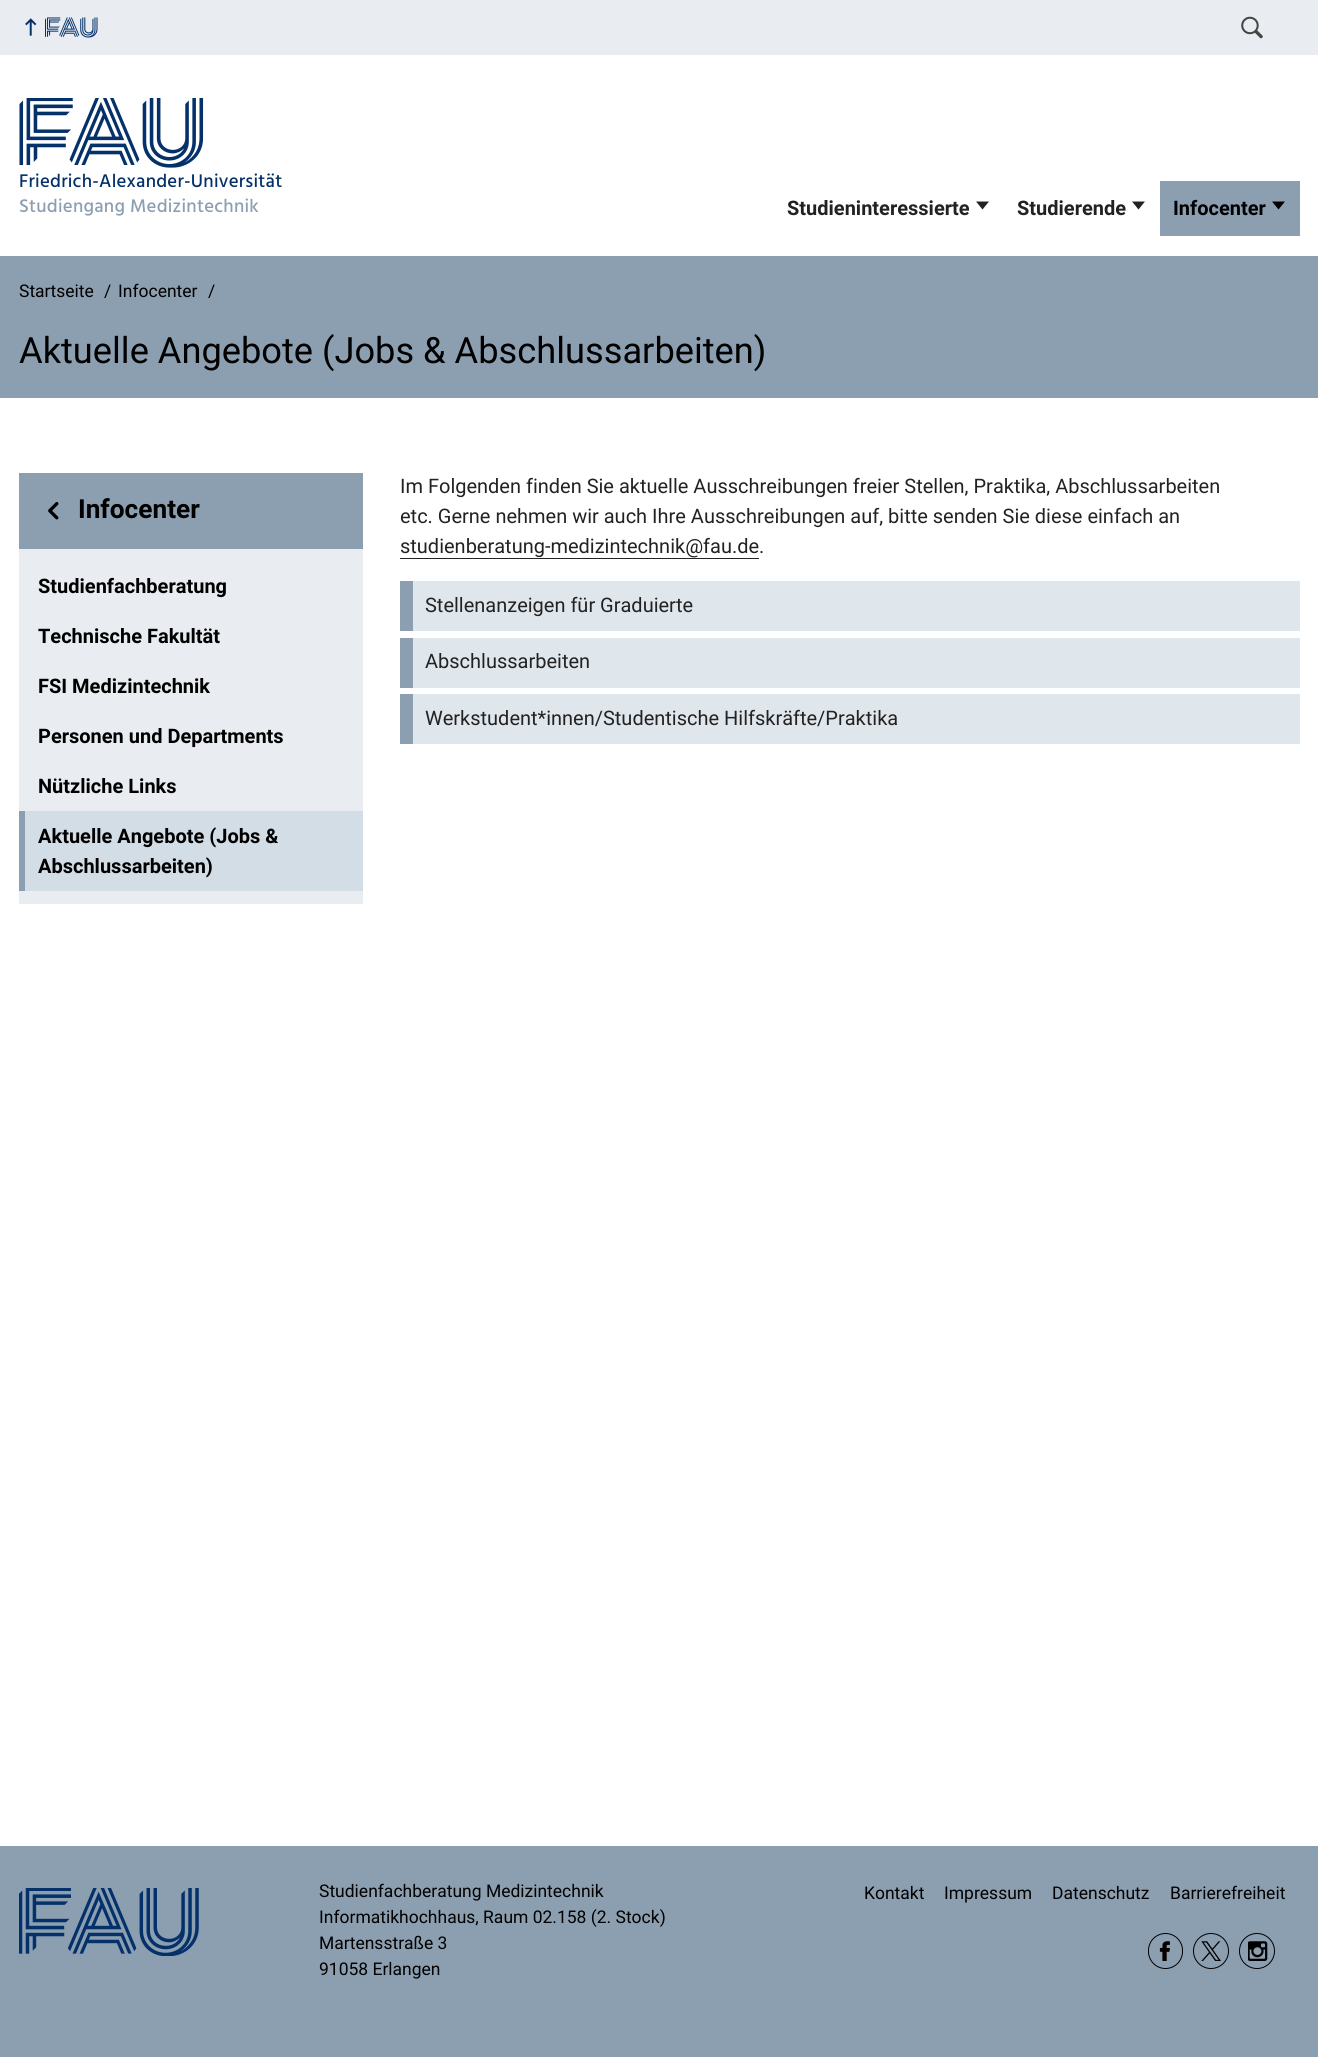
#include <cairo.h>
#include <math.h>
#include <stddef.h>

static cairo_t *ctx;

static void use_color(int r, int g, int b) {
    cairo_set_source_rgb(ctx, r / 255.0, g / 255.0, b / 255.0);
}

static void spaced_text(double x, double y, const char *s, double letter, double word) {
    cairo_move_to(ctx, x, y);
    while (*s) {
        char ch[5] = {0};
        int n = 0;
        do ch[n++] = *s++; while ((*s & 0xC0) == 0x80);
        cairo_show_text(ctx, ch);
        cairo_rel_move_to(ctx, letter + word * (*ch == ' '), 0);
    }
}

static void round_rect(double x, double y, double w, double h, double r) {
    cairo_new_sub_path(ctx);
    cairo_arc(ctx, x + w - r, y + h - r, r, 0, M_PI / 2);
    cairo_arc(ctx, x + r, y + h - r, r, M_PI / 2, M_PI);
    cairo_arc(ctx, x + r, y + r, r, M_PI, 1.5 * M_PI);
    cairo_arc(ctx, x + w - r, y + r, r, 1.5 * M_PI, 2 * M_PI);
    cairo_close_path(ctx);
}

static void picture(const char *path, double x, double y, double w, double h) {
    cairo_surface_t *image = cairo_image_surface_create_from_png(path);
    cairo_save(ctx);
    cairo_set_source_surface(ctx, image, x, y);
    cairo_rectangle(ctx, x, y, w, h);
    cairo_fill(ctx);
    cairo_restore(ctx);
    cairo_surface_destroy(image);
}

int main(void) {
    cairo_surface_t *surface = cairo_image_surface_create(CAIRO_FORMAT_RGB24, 1318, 2057);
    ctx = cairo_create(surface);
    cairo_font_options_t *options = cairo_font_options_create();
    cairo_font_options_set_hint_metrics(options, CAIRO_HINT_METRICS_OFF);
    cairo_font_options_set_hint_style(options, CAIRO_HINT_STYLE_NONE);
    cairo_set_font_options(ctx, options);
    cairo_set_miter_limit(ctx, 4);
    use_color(255, 255, 255);
    cairo_paint(ctx);
    use_color(233, 237, 242);
    cairo_rectangle(ctx, 0, 0, 1318, 55);
    cairo_fill(ctx);
    picture("img1.png", 25, 18, 12, 18);
    picture("img2.png", 45, 17, 53, 21);
    picture("img3.png", 1241, 16, 22, 23);
    picture("img4.png", 19, 98, 185, 70);
    cairo_select_font_face(ctx, "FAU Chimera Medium", CAIRO_FONT_SLANT_NORMAL, CAIRO_FONT_WEIGHT_NORMAL);
    cairo_set_font_size(ctx, 18.75);
    use_color(4, 49, 106);
    spaced_text(19, 187, "Friedrich-Alexander-Universität", 0.25, 0);
    use_color(140, 159, 177);
    spaced_text(19, 212, "Studiengang Medizintechnik", 0.25, 0);
    cairo_select_font_face(ctx, "Roboto", CAIRO_FONT_SLANT_NORMAL, CAIRO_FONT_WEIGHT_BOLD);
    cairo_set_font_size(ctx, 20);
    use_color(34, 34, 34);
    cairo_move_to(ctx, 787, 215);
    cairo_show_text(ctx, "Studieninteressierte");
    cairo_new_path(ctx);
    cairo_move_to(ctx, 976, 201.5);
    cairo_line_to(ctx, 982.5, 209.5);
    cairo_line_to(ctx, 989, 201.5);
    cairo_close_path(ctx);
    cairo_fill(ctx);
    cairo_move_to(ctx, 1017, 215);
    cairo_show_text(ctx, "Studierende");
    cairo_new_path(ctx);
    cairo_move_to(ctx, 1132, 201.5);
    cairo_line_to(ctx, 1138.5, 209.5);
    cairo_line_to(ctx, 1145, 201.5);
    cairo_close_path(ctx);
    cairo_fill(ctx);
    use_color(140, 159, 177);
    cairo_rectangle(ctx, 1160, 181, 140, 55);
    cairo_fill(ctx);
    use_color(0, 0, 0);
    cairo_move_to(ctx, 1173, 215);
    cairo_show_text(ctx, "Infocenter");
    cairo_new_path(ctx);
    cairo_move_to(ctx, 1272, 201.5);
    cairo_line_to(ctx, 1278.5, 209.5);
    cairo_line_to(ctx, 1285, 201.5);
    cairo_close_path(ctx);
    cairo_fill(ctx);
    use_color(140, 159, 177);
    cairo_rectangle(ctx, 0, 256, 1318, 142);
    cairo_fill(ctx);
    cairo_select_font_face(ctx, "Roboto", CAIRO_FONT_SLANT_NORMAL, CAIRO_FONT_WEIGHT_NORMAL);
    cairo_set_font_size(ctx, 17.5);
    use_color(0, 0, 0);
    cairo_move_to(ctx, 19, 297);
    cairo_show_text(ctx, "Startseite");
    cairo_move_to(ctx, 104, 297);
    cairo_show_text(ctx, "/");
    cairo_move_to(ctx, 118, 297);
    cairo_show_text(ctx, "Infocenter");
    cairo_move_to(ctx, 208, 297);
    cairo_show_text(ctx, "/");
    cairo_set_font_size(ctx, 36.25);
    cairo_move_to(ctx, 19, 363);
    cairo_show_text(ctx, "Aktuelle Angebote (Jobs & Abschlussarbeiten)");
    use_color(140, 159, 177);
    cairo_rectangle(ctx, 19, 473, 344, 76);
    cairo_fill(ctx);
    picture("img5.png", 48, 502, 11, 18);
    cairo_select_font_face(ctx, "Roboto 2", CAIRO_FONT_SLANT_NORMAL, CAIRO_FONT_WEIGHT_BOLD);
    cairo_set_font_size(ctx, 26.25);
    use_color(0, 0, 0);
    cairo_move_to(ctx, 78, 518);
    cairo_show_text(ctx, "Infocenter");
    use_color(233, 237, 242);
    cairo_rectangle(ctx, 19, 549, 344, 355);
    cairo_fill(ctx);
    cairo_set_font_size(ctx, 20);
    use_color(0, 0, 0);
    cairo_move_to(ctx, 38, 593);
    cairo_show_text(ctx, "Studienfachberatung");
    cairo_move_to(ctx, 38, 643);
    cairo_show_text(ctx, "Technische Fakultät");
    cairo_move_to(ctx, 38, 693);
    cairo_show_text(ctx, "FSI Medizintechnik");
    cairo_move_to(ctx, 38, 743);
    cairo_show_text(ctx, "Personen und Departments");
    cairo_move_to(ctx, 38, 793);
    cairo_show_text(ctx, "Nützliche Links");
    use_color(211, 221, 230);
    cairo_rectangle(ctx, 25, 811, 338, 80);
    cairo_fill(ctx);
    use_color(140, 159, 177);
    cairo_rectangle(ctx, 19, 811, 6, 80);
    cairo_fill(ctx);
    cairo_select_font_face(ctx, "Roboto", CAIRO_FONT_SLANT_NORMAL, CAIRO_FONT_WEIGHT_BOLD);
    use_color(0, 0, 0);
    cairo_move_to(ctx, 38, 843);
    cairo_show_text(ctx, "Aktuelle Angebote (Jobs &");
    cairo_move_to(ctx, 38, 873);
    cairo_show_text(ctx, "Abschlussarbeiten)");
    cairo_select_font_face(ctx, "Roboto", CAIRO_FONT_SLANT_NORMAL, CAIRO_FONT_WEIGHT_NORMAL);
    use_color(34, 34, 34);
    cairo_move_to(ctx, 400, 493);
    cairo_show_text(ctx, "Im Folgenden finden Sie aktuelle Ausschreibungen freier Stellen, Praktika, Abschlussarbeiten");
    cairo_move_to(ctx, 400, 523);
    cairo_show_text(ctx, "etc. Gerne nehmen wir auch Ihre Ausschreibungen auf, bitte senden Sie diese einfach an");
    cairo_move_to(ctx, 400, 553);
    cairo_show_text(ctx, "studienberatung-medizintechnik@fau.de.");
    cairo_rectangle(ctx, 400, 558, 359, 1);
    cairo_fill(ctx);
    use_color(223, 230, 236);
    cairo_rectangle(ctx, 413, 581, 887, 50);
    cairo_fill(ctx);
    use_color(140, 159, 177);
    cairo_rectangle(ctx, 400, 581, 13, 50);
    cairo_fill(ctx);
    use_color(34, 34, 34);
    cairo_move_to(ctx, 425, 612);
    cairo_show_text(ctx, "Stellenanzeigen für Graduierte");
    use_color(223, 230, 236);
    cairo_rectangle(ctx, 413, 638, 887, 50);
    cairo_fill(ctx);
    use_color(140, 159, 177);
    cairo_rectangle(ctx, 400, 638, 13, 50);
    cairo_fill(ctx);
    use_color(34, 34, 34);
    cairo_move_to(ctx, 425, 668);
    cairo_show_text(ctx, "Abschlussarbeiten");
    use_color(223, 230, 236);
    cairo_rectangle(ctx, 413, 694, 887, 50);
    cairo_fill(ctx);
    use_color(140, 159, 177);
    cairo_rectangle(ctx, 400, 694, 13, 50);
    cairo_fill(ctx);
    use_color(34, 34, 34);
    cairo_move_to(ctx, 425, 725);
    cairo_show_text(ctx, "Werkstudent*innen/Studentische Hilfskräfte/Praktika");
    use_color(140, 159, 177);
    cairo_rectangle(ctx, 0, 1846, 1318, 211);
    cairo_fill(ctx);
    picture("img6.png", 19, 1888, 180, 68);
    cairo_set_font_size(ctx, 17.5);
    use_color(0, 0, 0);
    cairo_move_to(ctx, 319, 1897);
    cairo_show_text(ctx, "Studienfachberatung Medizintechnik");
    cairo_move_to(ctx, 319, 1923);
    cairo_show_text(ctx, "Informatikhochhaus, Raum 02.158 (2. Stock)");
    cairo_move_to(ctx, 319, 1949);
    cairo_show_text(ctx, "Martensstraße 3");
    cairo_move_to(ctx, 319, 1975);
    cairo_show_text(ctx, "91058 Erlangen");
    cairo_move_to(ctx, 864, 1899);
    cairo_show_text(ctx, "Kontakt");
    cairo_move_to(ctx, 944, 1899);
    cairo_show_text(ctx, "Impressum");
    cairo_move_to(ctx, 1052, 1899);
    cairo_show_text(ctx, "Datenschutz");
    cairo_move_to(ctx, 1170, 1899);
    cairo_show_text(ctx, "Barrierefreiheit");
    round_rect(1148.5, 1933.5, 34, 35, 17);
    cairo_set_line_width(ctx, 1);
    cairo_stroke(ctx);
    picture("img7.png", 1159, 1941, 11, 20);
    cairo_arc(ctx, 1211, 1951, 17.5, 0, 2 * M_PI);
    cairo_stroke(ctx);
    picture("img8.png", 1201, 1941, 20, 20);
    cairo_arc(ctx, 1257, 1951, 17.5, 0, 2 * M_PI);
    cairo_stroke(ctx);
    picture("img9.png", 1248, 1941, 20, 20);
    cairo_surface_write_to_png(surface, "result.png");
    cairo_font_options_destroy(options);
    cairo_destroy(ctx);
    cairo_surface_destroy(surface);
    return 0;
}
